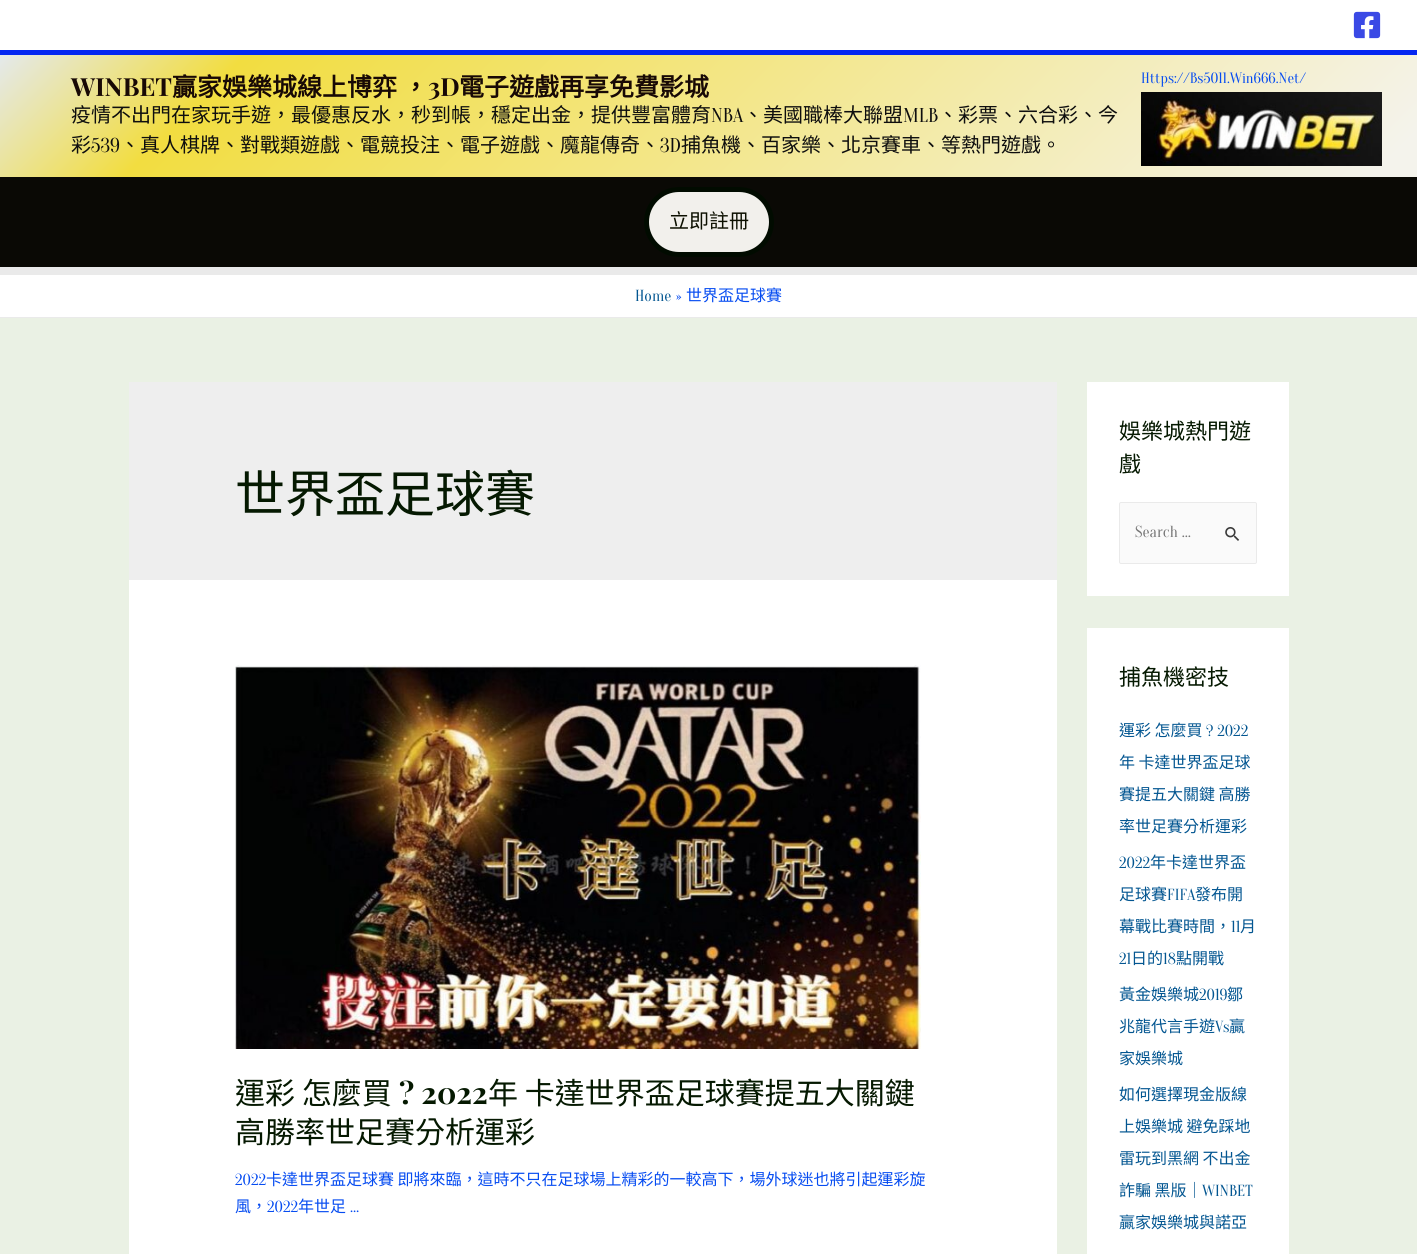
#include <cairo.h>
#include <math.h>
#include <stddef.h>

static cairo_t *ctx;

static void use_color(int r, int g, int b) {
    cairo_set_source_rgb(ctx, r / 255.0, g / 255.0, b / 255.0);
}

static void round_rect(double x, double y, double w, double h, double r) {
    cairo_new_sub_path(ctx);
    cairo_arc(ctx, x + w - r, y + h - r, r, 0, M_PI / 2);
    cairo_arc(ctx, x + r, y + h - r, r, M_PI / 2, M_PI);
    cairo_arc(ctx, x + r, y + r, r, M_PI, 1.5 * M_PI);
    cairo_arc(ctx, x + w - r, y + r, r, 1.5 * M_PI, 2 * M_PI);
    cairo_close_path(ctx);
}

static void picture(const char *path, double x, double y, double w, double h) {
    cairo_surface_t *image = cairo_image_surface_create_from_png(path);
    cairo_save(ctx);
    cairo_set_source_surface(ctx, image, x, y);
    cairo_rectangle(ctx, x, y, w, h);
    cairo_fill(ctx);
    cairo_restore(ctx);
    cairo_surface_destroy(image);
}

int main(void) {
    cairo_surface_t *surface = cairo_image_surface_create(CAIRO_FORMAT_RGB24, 1417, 1254);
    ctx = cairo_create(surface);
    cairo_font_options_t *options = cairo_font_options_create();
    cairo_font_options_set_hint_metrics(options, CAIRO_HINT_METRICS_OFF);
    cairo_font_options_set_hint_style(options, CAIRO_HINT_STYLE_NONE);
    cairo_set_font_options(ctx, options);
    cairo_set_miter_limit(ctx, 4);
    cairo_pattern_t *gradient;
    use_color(234, 241, 228);
    cairo_paint(ctx);
    use_color(255, 255, 255);
    cairo_rectangle(ctx, 0, 0, 1417, 50);
    cairo_fill(ctx);
    use_color(4, 39, 241);
    cairo_rectangle(ctx, 0, 50, 1417, 5);
    cairo_fill(ctx);
    picture("img1.png", 1353, 11, 28, 28);
    gradient = cairo_pattern_create_linear(324, -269, 1093, 501);
    cairo_pattern_add_color_stop_rgba(gradient, 0, 0.894, 0.914, 0.925, 1);
    cairo_pattern_add_color_stop_rgba(gradient, 0.16, 0.949, 0.867, 0.251, 1);
    cairo_pattern_add_color_stop_rgba(gradient, 0.97, 0.957, 0.953, 0.925, 1);
    cairo_set_source(ctx, gradient);
    cairo_pattern_destroy(gradient);
    cairo_rectangle(ctx, 0, 55, 1417, 122);
    cairo_fill(ctx);
    cairo_select_font_face(ctx, "Playfair Display", CAIRO_FONT_SLANT_NORMAL, CAIRO_FONT_WEIGHT_BOLD);
    cairo_set_font_size(ctx, 25);
    use_color(24, 9, 5);
    cairo_move_to(ctx, 71, 96);
    cairo_show_text(ctx, "WINBET");
    cairo_select_font_face(ctx, "Noto Sans CJK TC", CAIRO_FONT_SLANT_NORMAL, CAIRO_FONT_WEIGHT_BOLD);
    cairo_move_to(ctx, 172, 96);
    cairo_show_text(ctx, "贏家娛樂城線上博弈");
    cairo_move_to(ctx, 403, 96);
    cairo_show_text(ctx, "，");
    cairo_select_font_face(ctx, "Playfair Display", CAIRO_FONT_SLANT_NORMAL, CAIRO_FONT_WEIGHT_BOLD);
    cairo_move_to(ctx, 428, 96);
    cairo_show_text(ctx, "3D");
    cairo_select_font_face(ctx, "Noto Sans CJK TC", CAIRO_FONT_SLANT_NORMAL, CAIRO_FONT_WEIGHT_BOLD);
    cairo_move_to(ctx, 459, 96);
    cairo_show_text(ctx, "電子遊戲再享免費影城");
    cairo_select_font_face(ctx, "Noto Sans CJK TC", CAIRO_FONT_SLANT_NORMAL, CAIRO_FONT_WEIGHT_NORMAL);
    cairo_set_font_size(ctx, 20);
    use_color(14, 14, 14);
    cairo_move_to(ctx, 71, 122);
    cairo_show_text(ctx, "疫情不出門在家玩手遊，最優惠反水，秒到帳，穩定出金，提供豐富體育");
    cairo_select_font_face(ctx, "Oranienbaum", CAIRO_FONT_SLANT_NORMAL, CAIRO_FONT_WEIGHT_NORMAL);
    cairo_move_to(ctx, 711, 122);
    cairo_show_text(ctx, "NBA");
    cairo_select_font_face(ctx, "Noto Sans CJK TC", CAIRO_FONT_SLANT_NORMAL, CAIRO_FONT_WEIGHT_NORMAL);
    cairo_move_to(ctx, 743, 122);
    cairo_show_text(ctx, "、美國職棒大聯盟");
    cairo_select_font_face(ctx, "Oranienbaum", CAIRO_FONT_SLANT_NORMAL, CAIRO_FONT_WEIGHT_NORMAL);
    cairo_move_to(ctx, 903, 122);
    cairo_show_text(ctx, "MLB");
    cairo_select_font_face(ctx, "Noto Sans CJK TC", CAIRO_FONT_SLANT_NORMAL, CAIRO_FONT_WEIGHT_NORMAL);
    cairo_move_to(ctx, 938, 122);
    cairo_show_text(ctx, "、彩票、六合彩、今");
    cairo_move_to(ctx, 71, 152);
    cairo_show_text(ctx, "彩");
    cairo_select_font_face(ctx, "Oranienbaum", CAIRO_FONT_SLANT_NORMAL, CAIRO_FONT_WEIGHT_NORMAL);
    cairo_move_to(ctx, 91, 152);
    cairo_show_text(ctx, "539");
    cairo_select_font_face(ctx, "Noto Sans CJK TC", CAIRO_FONT_SLANT_NORMAL, CAIRO_FONT_WEIGHT_NORMAL);
    cairo_move_to(ctx, 120, 152);
    cairo_show_text(ctx, "、真人棋牌、對戰類遊戲、電競投注、電子遊戲、魔龍傳奇、");
    cairo_select_font_face(ctx, "Oranienbaum", CAIRO_FONT_SLANT_NORMAL, CAIRO_FONT_WEIGHT_NORMAL);
    cairo_move_to(ctx, 660, 152);
    cairo_show_text(ctx, "3D");
    cairo_select_font_face(ctx, "Noto Sans CJK TC", CAIRO_FONT_SLANT_NORMAL, CAIRO_FONT_WEIGHT_NORMAL);
    cairo_move_to(ctx, 681, 152);
    cairo_show_text(ctx, "捕魚機、百家樂、北京賽車、等熱門遊戲。");
    cairo_select_font_face(ctx, "Oranienbaum", CAIRO_FONT_SLANT_NORMAL, CAIRO_FONT_WEIGHT_NORMAL);
    cairo_set_font_size(ctx, 15);
    use_color(6, 76, 241);
    cairo_move_to(ctx, 1141, 83);
    cairo_show_text(ctx, "Https://Bs5011.Win666.Net/");
    picture("img2.png", 1141, 92, 241, 74);
    use_color(10, 9, 5);
    cairo_rectangle(ctx, 0, 177, 1417, 90);
    cairo_fill(ctx);
    use_color(234, 234, 234);
    cairo_rectangle(ctx, 0, 267, 1417, 8);
    cairo_fill(ctx);
    use_color(242, 240, 236);
    round_rect(646.5, 189.5, 125, 65, 32.5);
    cairo_fill_preserve(ctx);
    use_color(1, 11, 0);
    cairo_set_line_width(ctx, 5);
    cairo_stroke(ctx);
    cairo_select_font_face(ctx, "Noto Sans CJK TC", CAIRO_FONT_SLANT_NORMAL, CAIRO_FONT_WEIGHT_NORMAL);
    cairo_set_font_size(ctx, 20);
    use_color(12, 15, 0);
    cairo_move_to(ctx, 669, 228);
    cairo_show_text(ctx, "立即註冊");
    use_color(255, 255, 255);
    cairo_rectangle(ctx, 0, 275, 1417, 42);
    cairo_fill(ctx);
    use_color(234, 234, 234);
    cairo_rectangle(ctx, 0, 317, 1417, 1);
    cairo_fill(ctx);
    cairo_select_font_face(ctx, "Oranienbaum", CAIRO_FONT_SLANT_NORMAL, CAIRO_FONT_WEIGHT_NORMAL);
    cairo_set_font_size(ctx, 16);
    use_color(3, 86, 145);
    cairo_move_to(ctx, 635, 301);
    cairo_show_text(ctx, "Home");
    use_color(6, 76, 241);
    cairo_move_to(ctx, 676, 301);
    cairo_show_text(ctx, "»");
    cairo_select_font_face(ctx, "Noto Sans CJK TC", CAIRO_FONT_SLANT_NORMAL, CAIRO_FONT_WEIGHT_NORMAL);
    cairo_move_to(ctx, 686, 301);
    cairo_show_text(ctx, "世界盃足球賽");
    use_color(238, 238, 238);
    cairo_rectangle(ctx, 129, 382, 928, 198);
    cairo_fill(ctx);
    cairo_set_font_size(ctx, 50);
    use_color(5, 25, 1);
    cairo_move_to(ctx, 235, 512);
    cairo_show_text(ctx, "世界盃足球賽");
    use_color(255, 255, 255);
    cairo_rectangle(ctx, 129, 580, 928, 674);
    cairo_fill(ctx);
    picture("img3.png", 235, 665, 686, 384);
    cairo_set_font_size(ctx, 30);
    use_color(5, 25, 1);
    cairo_move_to(ctx, 235, 1104);
    cairo_show_text(ctx, "運彩 怎麼買");
    cairo_select_font_face(ctx, "Playfair Display", CAIRO_FONT_SLANT_NORMAL, CAIRO_FONT_WEIGHT_BOLD);
    cairo_move_to(ctx, 399, 1104);
    cairo_show_text(ctx, "? 2022");
    cairo_select_font_face(ctx, "Noto Sans CJK TC", CAIRO_FONT_SLANT_NORMAL, CAIRO_FONT_WEIGHT_NORMAL);
    cairo_move_to(ctx, 488, 1104);
    cairo_show_text(ctx, "年 卡達世界盃足球賽提五大關鍵");
    cairo_move_to(ctx, 235, 1143);
    cairo_show_text(ctx, "高勝率世足賽分析運彩");
    cairo_select_font_face(ctx, "Oranienbaum", CAIRO_FONT_SLANT_NORMAL, CAIRO_FONT_WEIGHT_NORMAL);
    cairo_set_font_size(ctx, 16);
    use_color(6, 76, 241);
    cairo_move_to(ctx, 235, 1185);
    cairo_show_text(ctx, "2022");
    cairo_select_font_face(ctx, "Noto Sans CJK TC", CAIRO_FONT_SLANT_NORMAL, CAIRO_FONT_WEIGHT_NORMAL);
    cairo_move_to(ctx, 266, 1185);
    cairo_show_text(ctx, "卡達世界盃足球賽 即將來臨，這時不只在足球場上精彩的一較高下，場外球迷也將引起運彩旋");
    cairo_move_to(ctx, 235, 1212);
    cairo_show_text(ctx, "風，");
    cairo_select_font_face(ctx, "Oranienbaum", CAIRO_FONT_SLANT_NORMAL, CAIRO_FONT_WEIGHT_NORMAL);
    cairo_move_to(ctx, 267, 1212);
    cairo_show_text(ctx, "2022");
    cairo_select_font_face(ctx, "Noto Sans CJK TC", CAIRO_FONT_SLANT_NORMAL, CAIRO_FONT_WEIGHT_NORMAL);
    cairo_move_to(ctx, 298, 1212);
    cairo_show_text(ctx, "年世足");
    cairo_select_font_face(ctx, "Oranienbaum", CAIRO_FONT_SLANT_NORMAL, CAIRO_FONT_WEIGHT_NORMAL);
    cairo_move_to(ctx, 350, 1212);
    cairo_show_text(ctx, "…");
    use_color(255, 255, 255);
    cairo_rectangle(ctx, 1087, 382, 202, 214);
    cairo_fill(ctx);
    cairo_select_font_face(ctx, "Noto Sans CJK TC", CAIRO_FONT_SLANT_NORMAL, CAIRO_FONT_WEIGHT_NORMAL);
    cairo_set_font_size(ctx, 22);
    use_color(5, 25, 1);
    cairo_move_to(ctx, 1119, 439);
    cairo_show_text(ctx, "娛樂城熱門遊");
    cairo_move_to(ctx, 1119, 472);
    cairo_show_text(ctx, "戲");
    use_color(250, 250, 250);
    round_rect(1119.5, 502.5, 137, 61, 1.5);
    cairo_fill_preserve(ctx);
    use_color(234, 234, 234);
    cairo_set_line_width(ctx, 1);
    cairo_stroke(ctx);
    cairo_select_font_face(ctx, "Oranienbaum", CAIRO_FONT_SLANT_NORMAL, CAIRO_FONT_WEIGHT_NORMAL);
    cairo_set_font_size(ctx, 16);
    use_color(117, 117, 117);
    cairo_move_to(ctx, 1135, 537);
    cairo_show_text(ctx, "Search …");
    picture("img4.png", 1225, 527, 15, 14);
    use_color(255, 255, 255);
    cairo_rectangle(ctx, 1087, 628, 202, 626);
    cairo_fill(ctx);
    cairo_select_font_face(ctx, "Noto Sans CJK TC", CAIRO_FONT_SLANT_NORMAL, CAIRO_FONT_WEIGHT_NORMAL);
    cairo_set_font_size(ctx, 22);
    use_color(5, 25, 1);
    cairo_move_to(ctx, 1119, 685);
    cairo_show_text(ctx, "捕魚機密技");
    cairo_set_font_size(ctx, 16);
    use_color(3, 86, 145);
    cairo_move_to(ctx, 1119, 736);
    cairo_show_text(ctx, "運彩 怎麼買");
    cairo_select_font_face(ctx, "Oranienbaum", CAIRO_FONT_SLANT_NORMAL, CAIRO_FONT_WEIGHT_NORMAL);
    cairo_move_to(ctx, 1206, 736);
    cairo_show_text(ctx, "? 2022");
    cairo_select_font_face(ctx, "Noto Sans CJK TC", CAIRO_FONT_SLANT_NORMAL, CAIRO_FONT_WEIGHT_NORMAL);
    cairo_move_to(ctx, 1119, 768);
    cairo_show_text(ctx, "年 卡達世界盃足球");
    cairo_move_to(ctx, 1119, 800);
    cairo_show_text(ctx, "賽提五大關鍵 高勝");
    cairo_move_to(ctx, 1119, 832);
    cairo_show_text(ctx, "率世足賽分析運彩");
    cairo_select_font_face(ctx, "Oranienbaum", CAIRO_FONT_SLANT_NORMAL, CAIRO_FONT_WEIGHT_NORMAL);
    cairo_move_to(ctx, 1119, 868);
    cairo_show_text(ctx, "2022");
    cairo_select_font_face(ctx, "Noto Sans CJK TC", CAIRO_FONT_SLANT_NORMAL, CAIRO_FONT_WEIGHT_NORMAL);
    cairo_move_to(ctx, 1150, 868);
    cairo_show_text(ctx, "年卡達世界盃");
    cairo_move_to(ctx, 1119, 900);
    cairo_show_text(ctx, "足球賽");
    cairo_select_font_face(ctx, "Oranienbaum", CAIRO_FONT_SLANT_NORMAL, CAIRO_FONT_WEIGHT_NORMAL);
    cairo_move_to(ctx, 1167, 900);
    cairo_show_text(ctx, "FIFA");
    cairo_select_font_face(ctx, "Noto Sans CJK TC", CAIRO_FONT_SLANT_NORMAL, CAIRO_FONT_WEIGHT_NORMAL);
    cairo_move_to(ctx, 1195, 900);
    cairo_show_text(ctx, "發布開");
    cairo_move_to(ctx, 1119, 932);
    cairo_show_text(ctx, "幕戰比賽時間，");
    cairo_select_font_face(ctx, "Oranienbaum", CAIRO_FONT_SLANT_NORMAL, CAIRO_FONT_WEIGHT_NORMAL);
    cairo_move_to(ctx, 1231, 932);
    cairo_show_text(ctx, "11");
    cairo_select_font_face(ctx, "Noto Sans CJK TC", CAIRO_FONT_SLANT_NORMAL, CAIRO_FONT_WEIGHT_NORMAL);
    cairo_move_to(ctx, 1240, 932);
    cairo_show_text(ctx, "月");
    cairo_select_font_face(ctx, "Oranienbaum", CAIRO_FONT_SLANT_NORMAL, CAIRO_FONT_WEIGHT_NORMAL);
    cairo_move_to(ctx, 1119, 964);
    cairo_show_text(ctx, "21");
    cairo_select_font_face(ctx, "Noto Sans CJK TC", CAIRO_FONT_SLANT_NORMAL, CAIRO_FONT_WEIGHT_NORMAL);
    cairo_move_to(ctx, 1131, 964);
    cairo_show_text(ctx, "日的");
    cairo_select_font_face(ctx, "Oranienbaum", CAIRO_FONT_SLANT_NORMAL, CAIRO_FONT_WEIGHT_NORMAL);
    cairo_move_to(ctx, 1163, 964);
    cairo_show_text(ctx, "18");
    cairo_select_font_face(ctx, "Noto Sans CJK TC", CAIRO_FONT_SLANT_NORMAL, CAIRO_FONT_WEIGHT_NORMAL);
    cairo_move_to(ctx, 1176, 964);
    cairo_show_text(ctx, "點開戰");
    cairo_move_to(ctx, 1119, 1000);
    cairo_show_text(ctx, "黃金娛樂城");
    cairo_select_font_face(ctx, "Oranienbaum", CAIRO_FONT_SLANT_NORMAL, CAIRO_FONT_WEIGHT_NORMAL);
    cairo_move_to(ctx, 1199, 1000);
    cairo_show_text(ctx, "2019");
    cairo_select_font_face(ctx, "Noto Sans CJK TC", CAIRO_FONT_SLANT_NORMAL, CAIRO_FONT_WEIGHT_NORMAL);
    cairo_move_to(ctx, 1227, 1000);
    cairo_show_text(ctx, "鄒");
    cairo_move_to(ctx, 1119, 1032);
    cairo_show_text(ctx, "兆龍代言手遊");
    cairo_select_font_face(ctx, "Oranienbaum", CAIRO_FONT_SLANT_NORMAL, CAIRO_FONT_WEIGHT_NORMAL);
    cairo_move_to(ctx, 1215, 1032);
    cairo_show_text(ctx, "Vs");
    cairo_select_font_face(ctx, "Noto Sans CJK TC", CAIRO_FONT_SLANT_NORMAL, CAIRO_FONT_WEIGHT_NORMAL);
    cairo_move_to(ctx, 1229, 1032);
    cairo_show_text(ctx, "贏");
    cairo_move_to(ctx, 1119, 1064);
    cairo_show_text(ctx, "家娛樂城");
    cairo_move_to(ctx, 1119, 1100);
    cairo_show_text(ctx, "如何選擇現金版線");
    cairo_move_to(ctx, 1119, 1132);
    cairo_show_text(ctx, "上娛樂城 避免踩地");
    cairo_move_to(ctx, 1119, 1164);
    cairo_show_text(ctx, "雷玩到黑網 不出金");
    cairo_move_to(ctx, 1119, 1196);
    cairo_show_text(ctx, "詐騙 黑版｜");
    cairo_select_font_face(ctx, "Oranienbaum", CAIRO_FONT_SLANT_NORMAL, CAIRO_FONT_WEIGHT_NORMAL);
    cairo_move_to(ctx, 1202, 1196);
    cairo_show_text(ctx, "WINBET");
    cairo_select_font_face(ctx, "Noto Sans CJK TC", CAIRO_FONT_SLANT_NORMAL, CAIRO_FONT_WEIGHT_NORMAL);
    cairo_move_to(ctx, 1119, 1228);
    cairo_show_text(ctx, "贏家娛樂城與諾亞");
    cairo_surface_write_to_png(surface, "result.png");
    cairo_font_options_destroy(options);
    cairo_destroy(ctx);
    cairo_surface_destroy(surface);
    return 0;
}
